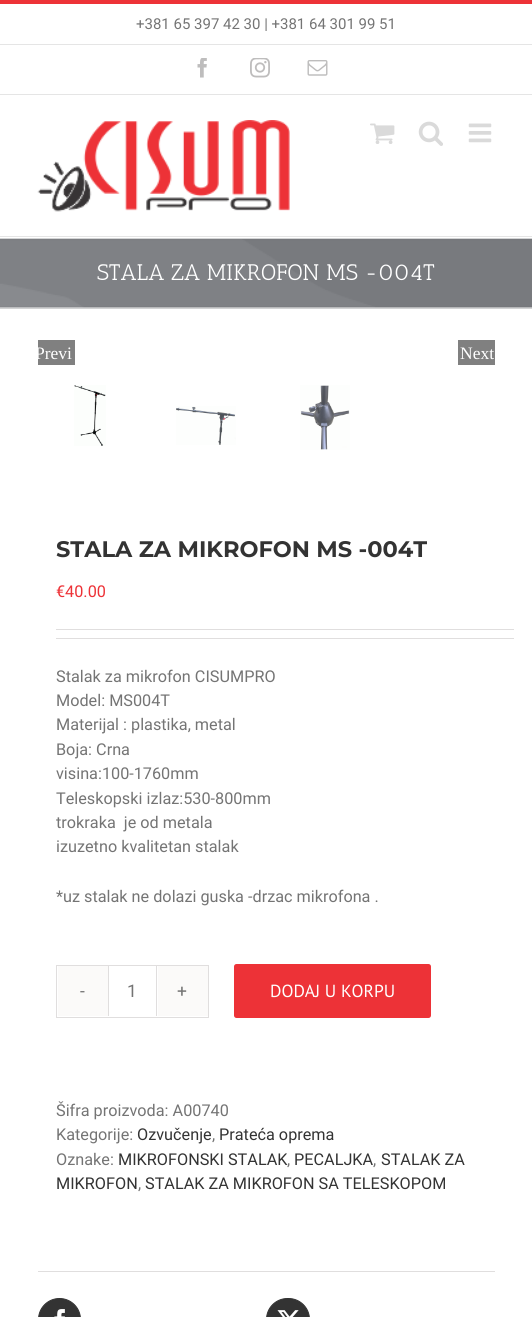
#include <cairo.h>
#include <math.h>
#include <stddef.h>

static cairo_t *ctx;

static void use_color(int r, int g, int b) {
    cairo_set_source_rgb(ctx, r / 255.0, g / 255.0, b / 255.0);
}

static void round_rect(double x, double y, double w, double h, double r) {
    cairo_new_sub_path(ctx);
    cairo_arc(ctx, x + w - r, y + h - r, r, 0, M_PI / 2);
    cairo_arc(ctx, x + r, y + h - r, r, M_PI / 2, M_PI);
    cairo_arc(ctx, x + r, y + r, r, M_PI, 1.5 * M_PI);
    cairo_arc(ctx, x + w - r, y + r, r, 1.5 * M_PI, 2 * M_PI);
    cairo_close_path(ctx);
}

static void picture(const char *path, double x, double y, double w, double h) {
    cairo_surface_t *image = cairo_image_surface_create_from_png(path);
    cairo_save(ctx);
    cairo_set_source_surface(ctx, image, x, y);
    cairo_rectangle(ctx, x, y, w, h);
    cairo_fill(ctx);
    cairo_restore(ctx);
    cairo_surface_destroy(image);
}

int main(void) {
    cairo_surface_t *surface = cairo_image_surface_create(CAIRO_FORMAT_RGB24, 532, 1317);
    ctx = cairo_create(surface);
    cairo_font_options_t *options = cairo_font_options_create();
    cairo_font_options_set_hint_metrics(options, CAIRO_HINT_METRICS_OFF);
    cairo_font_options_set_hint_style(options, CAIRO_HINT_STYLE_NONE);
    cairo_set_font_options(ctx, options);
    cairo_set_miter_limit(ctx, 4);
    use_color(255, 255, 255);
    cairo_paint(ctx);
    use_color(237, 50, 55);
    cairo_rectangle(ctx, 0, 0, 532, 4);
    cairo_fill(ctx);
    use_color(229, 229, 229);
    cairo_rectangle(ctx, 0, 94, 532, 1);
    cairo_fill(ctx);
    cairo_rectangle(ctx, 0, 44, 532, 1);
    cairo_fill(ctx);
    cairo_select_font_face(ctx, "Roboto", CAIRO_FONT_SLANT_NORMAL, CAIRO_FONT_WEIGHT_NORMAL);
    cairo_set_font_size(ctx, 15);
    use_color(116, 116, 116);
    cairo_move_to(ctx, 136, 29);
    cairo_show_text(ctx, "+381 65 397 42 30 | +381 64 301 99 51");
    picture("img1.png", 197, 58, 10, 20);
    picture("img2.png", 250, 58, 20, 20);
    picture("img3.png", 307, 60, 21, 16);
    use_color(229, 229, 229);
    cairo_rectangle(ctx, 0, 236, 532, 1);
    cairo_fill(ctx);
    picture("img4.png", 37, 120, 253, 92);
    picture("img5.png", 370, 123, 25, 21);
    picture("img6.png", 418, 121, 25, 25);
    picture("img7.png", 468, 123, 24, 20);
    use_color(246, 246, 246);
    cairo_rectangle(ctx, 0, 307, 532, 1);
    cairo_fill(ctx);
    picture("img8.png", 0, 239, 532, 69);
    use_color(210, 211, 212);
    cairo_rectangle(ctx, 0, 238, 532, 1);
    cairo_fill(ctx);
    cairo_rectangle(ctx, 0, 308, 532, 1);
    cairo_fill(ctx);
    cairo_select_font_face(ctx, "Antic Slab", CAIRO_FONT_SLANT_NORMAL, CAIRO_FONT_WEIGHT_NORMAL);
    cairo_set_font_size(ctx, 22.5);
    use_color(255, 255, 255);
    cairo_move_to(ctx, 97, 280);
    cairo_show_text(ctx, "STALA ZA MIKROFON MS -004T");
    use_color(128, 128, 128);
    cairo_rectangle(ctx, 38, 340, 37, 25);
    cairo_fill(ctx);
    cairo_save(ctx);
    cairo_rectangle(ctx, 38, 340, 37, 25);
    cairo_clip(ctx);
    cairo_select_font_face(ctx, "Liberation Serif", CAIRO_FONT_SLANT_NORMAL, CAIRO_FONT_WEIGHT_NORMAL);
    cairo_set_font_size(ctx, 17.5);
    use_color(255, 255, 255);
    cairo_move_to(ctx, 35, 359);
    cairo_show_text(ctx, "Previ");
    cairo_restore(ctx);
    cairo_rectangle(ctx, 458, 340, 37, 25);
    cairo_fill(ctx);
    cairo_select_font_face(ctx, "Liberation Serif", CAIRO_FONT_SLANT_NORMAL, CAIRO_FONT_WEIGHT_NORMAL);
    cairo_set_font_size(ctx, 17.5);
    use_color(255, 255, 255);
    cairo_move_to(ctx, 460, 359);
    cairo_show_text(ctx, "Next");
    picture("img9.png", 74, 385, 32, 61);
    picture("img10.png", 176, 406, 60, 39);
    picture("img11.png", 300, 385, 50, 65);
    cairo_select_font_face(ctx, "Montserrat Thin", CAIRO_FONT_SLANT_NORMAL, CAIRO_FONT_WEIGHT_NORMAL);
    cairo_set_font_size(ctx, 22.5);
    use_color(51, 51, 51);
    cairo_move_to(ctx, 56, 557);
    cairo_show_text(ctx, "STALA ZA MIKROFON MS -004T");
    cairo_select_font_face(ctx, "Roboto", CAIRO_FONT_SLANT_NORMAL, CAIRO_FONT_WEIGHT_NORMAL);
    cairo_set_font_size(ctx, 16.25);
    use_color(237, 50, 55);
    cairo_move_to(ctx, 56, 597);
    cairo_show_text(ctx, "€40.00");
    use_color(224, 222, 222);
    cairo_rectangle(ctx, 56, 629, 458, 1);
    cairo_fill(ctx);
    cairo_rectangle(ctx, 56, 638, 458, 1);
    cairo_fill(ctx);
    use_color(116, 116, 116);
    cairo_move_to(ctx, 56, 682);
    cairo_show_text(ctx, "Stalak za mikrofon CISUMPRO");
    cairo_move_to(ctx, 56, 706);
    cairo_show_text(ctx, "Model: MS004T");
    cairo_move_to(ctx, 56, 730);
    cairo_show_text(ctx, "Materijal : plastika, metal");
    cairo_move_to(ctx, 56, 755);
    cairo_show_text(ctx, "Boja: Crna");
    cairo_move_to(ctx, 56, 779);
    cairo_show_text(ctx, "visina:100-1760mm");
    cairo_move_to(ctx, 56, 804);
    cairo_show_text(ctx, "Teleskopski izlaz:530-800mm");
    cairo_move_to(ctx, 56, 828);
    cairo_show_text(ctx, "trokraka  je od metala");
    cairo_move_to(ctx, 56, 852);
    cairo_show_text(ctx, "izuzetno kvalitetan stalak");
    cairo_move_to(ctx, 56, 902);
    cairo_show_text(ctx, "*uz stalak ne dolazi guska -drzac mikrofona .");
    cairo_rectangle(ctx, 56.5, 965.5, 152, 52);
    use_color(224, 222, 222);
    cairo_set_line_width(ctx, 1);
    cairo_stroke(ctx);
    use_color(251, 250, 249);
    cairo_rectangle(ctx, 58, 966, 50, 50);
    cairo_fill(ctx);
    cairo_set_font_size(ctx, 17.5);
    use_color(116, 116, 116);
    cairo_move_to(ctx, 80, 997);
    cairo_show_text(ctx, "-");
    use_color(224, 222, 222);
    cairo_rectangle(ctx, 156, 966, 1, 50);
    cairo_fill(ctx);
    cairo_rectangle(ctx, 108, 966, 1, 50);
    cairo_fill(ctx);
    use_color(116, 116, 116);
    cairo_move_to(ctx, 127, 997);
    cairo_show_text(ctx, "1");
    use_color(251, 250, 249);
    cairo_rectangle(ctx, 158, 966, 50, 50);
    cairo_fill(ctx);
    use_color(116, 116, 116);
    cairo_move_to(ctx, 177, 997);
    cairo_show_text(ctx, "+");
    use_color(237, 50, 55);
    round_rect(234, 964, 197, 54, 2.5);
    cairo_fill(ctx);
    cairo_select_font_face(ctx, "PT Sans", CAIRO_FONT_SLANT_NORMAL, CAIRO_FONT_WEIGHT_NORMAL);
    use_color(255, 255, 255);
    cairo_move_to(ctx, 270, 997);
    cairo_show_text(ctx, "DODAJ U KORPU");
    cairo_select_font_face(ctx, "Roboto", CAIRO_FONT_SLANT_NORMAL, CAIRO_FONT_WEIGHT_NORMAL);
    cairo_set_font_size(ctx, 16.25);
    use_color(116, 116, 116);
    cairo_move_to(ctx, 56, 1116);
    cairo_show_text(ctx, "Šifra proizvoda: A00740");
    cairo_move_to(ctx, 56, 1140);
    cairo_show_text(ctx, "Kategorije:");
    use_color(51, 51, 51);
    cairo_move_to(ctx, 137, 1140);
    cairo_show_text(ctx, "Ozvučenje");
    use_color(116, 116, 116);
    cairo_move_to(ctx, 212, 1140);
    cairo_show_text(ctx, ",");
    use_color(51, 51, 51);
    cairo_move_to(ctx, 219, 1140);
    cairo_show_text(ctx, "Prateća oprema");
    use_color(116, 116, 116);
    cairo_move_to(ctx, 56, 1165);
    cairo_show_text(ctx, "Oznake:");
    use_color(51, 51, 51);
    cairo_move_to(ctx, 118, 1165);
    cairo_show_text(ctx, "MIKROFONSKI STALAK");
    use_color(116, 116, 116);
    cairo_move_to(ctx, 287, 1165);
    cairo_show_text(ctx, ",");
    use_color(51, 51, 51);
    cairo_move_to(ctx, 294, 1165);
    cairo_show_text(ctx, "PECALJKA");
    use_color(116, 116, 116);
    cairo_move_to(ctx, 373, 1165);
    cairo_show_text(ctx, ",");
    use_color(51, 51, 51);
    cairo_move_to(ctx, 381, 1165);
    cairo_show_text(ctx, "STALAK ZA");
    cairo_move_to(ctx, 56, 1189);
    cairo_show_text(ctx, "MIKROFON");
    use_color(116, 116, 116);
    cairo_move_to(ctx, 138, 1189);
    cairo_show_text(ctx, ",");
    use_color(51, 51, 51);
    cairo_move_to(ctx, 145, 1189);
    cairo_show_text(ctx, "STALAK ZA MIKROFON SA TELESKOPOM");
    use_color(224, 222, 222);
    cairo_rectangle(ctx, 38, 1271, 457, 1);
    cairo_fill(ctx);
    use_color(51, 51, 51);
    round_rect(38.5, 1298.5, 42, 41, 21);
    cairo_fill_preserve(ctx);
    cairo_stroke(ctx);
    picture("img12.png", 54, 1309, 11, 8);
    round_rect(266.5, 1298.5, 43, 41, 21);
    cairo_fill_preserve(ctx);
    cairo_stroke(ctx);
    picture("img13.png", 277, 1310, 22, 7);
    cairo_surface_write_to_png(surface, "result.png");
    cairo_font_options_destroy(options);
    cairo_destroy(ctx);
    cairo_surface_destroy(surface);
    return 0;
}
